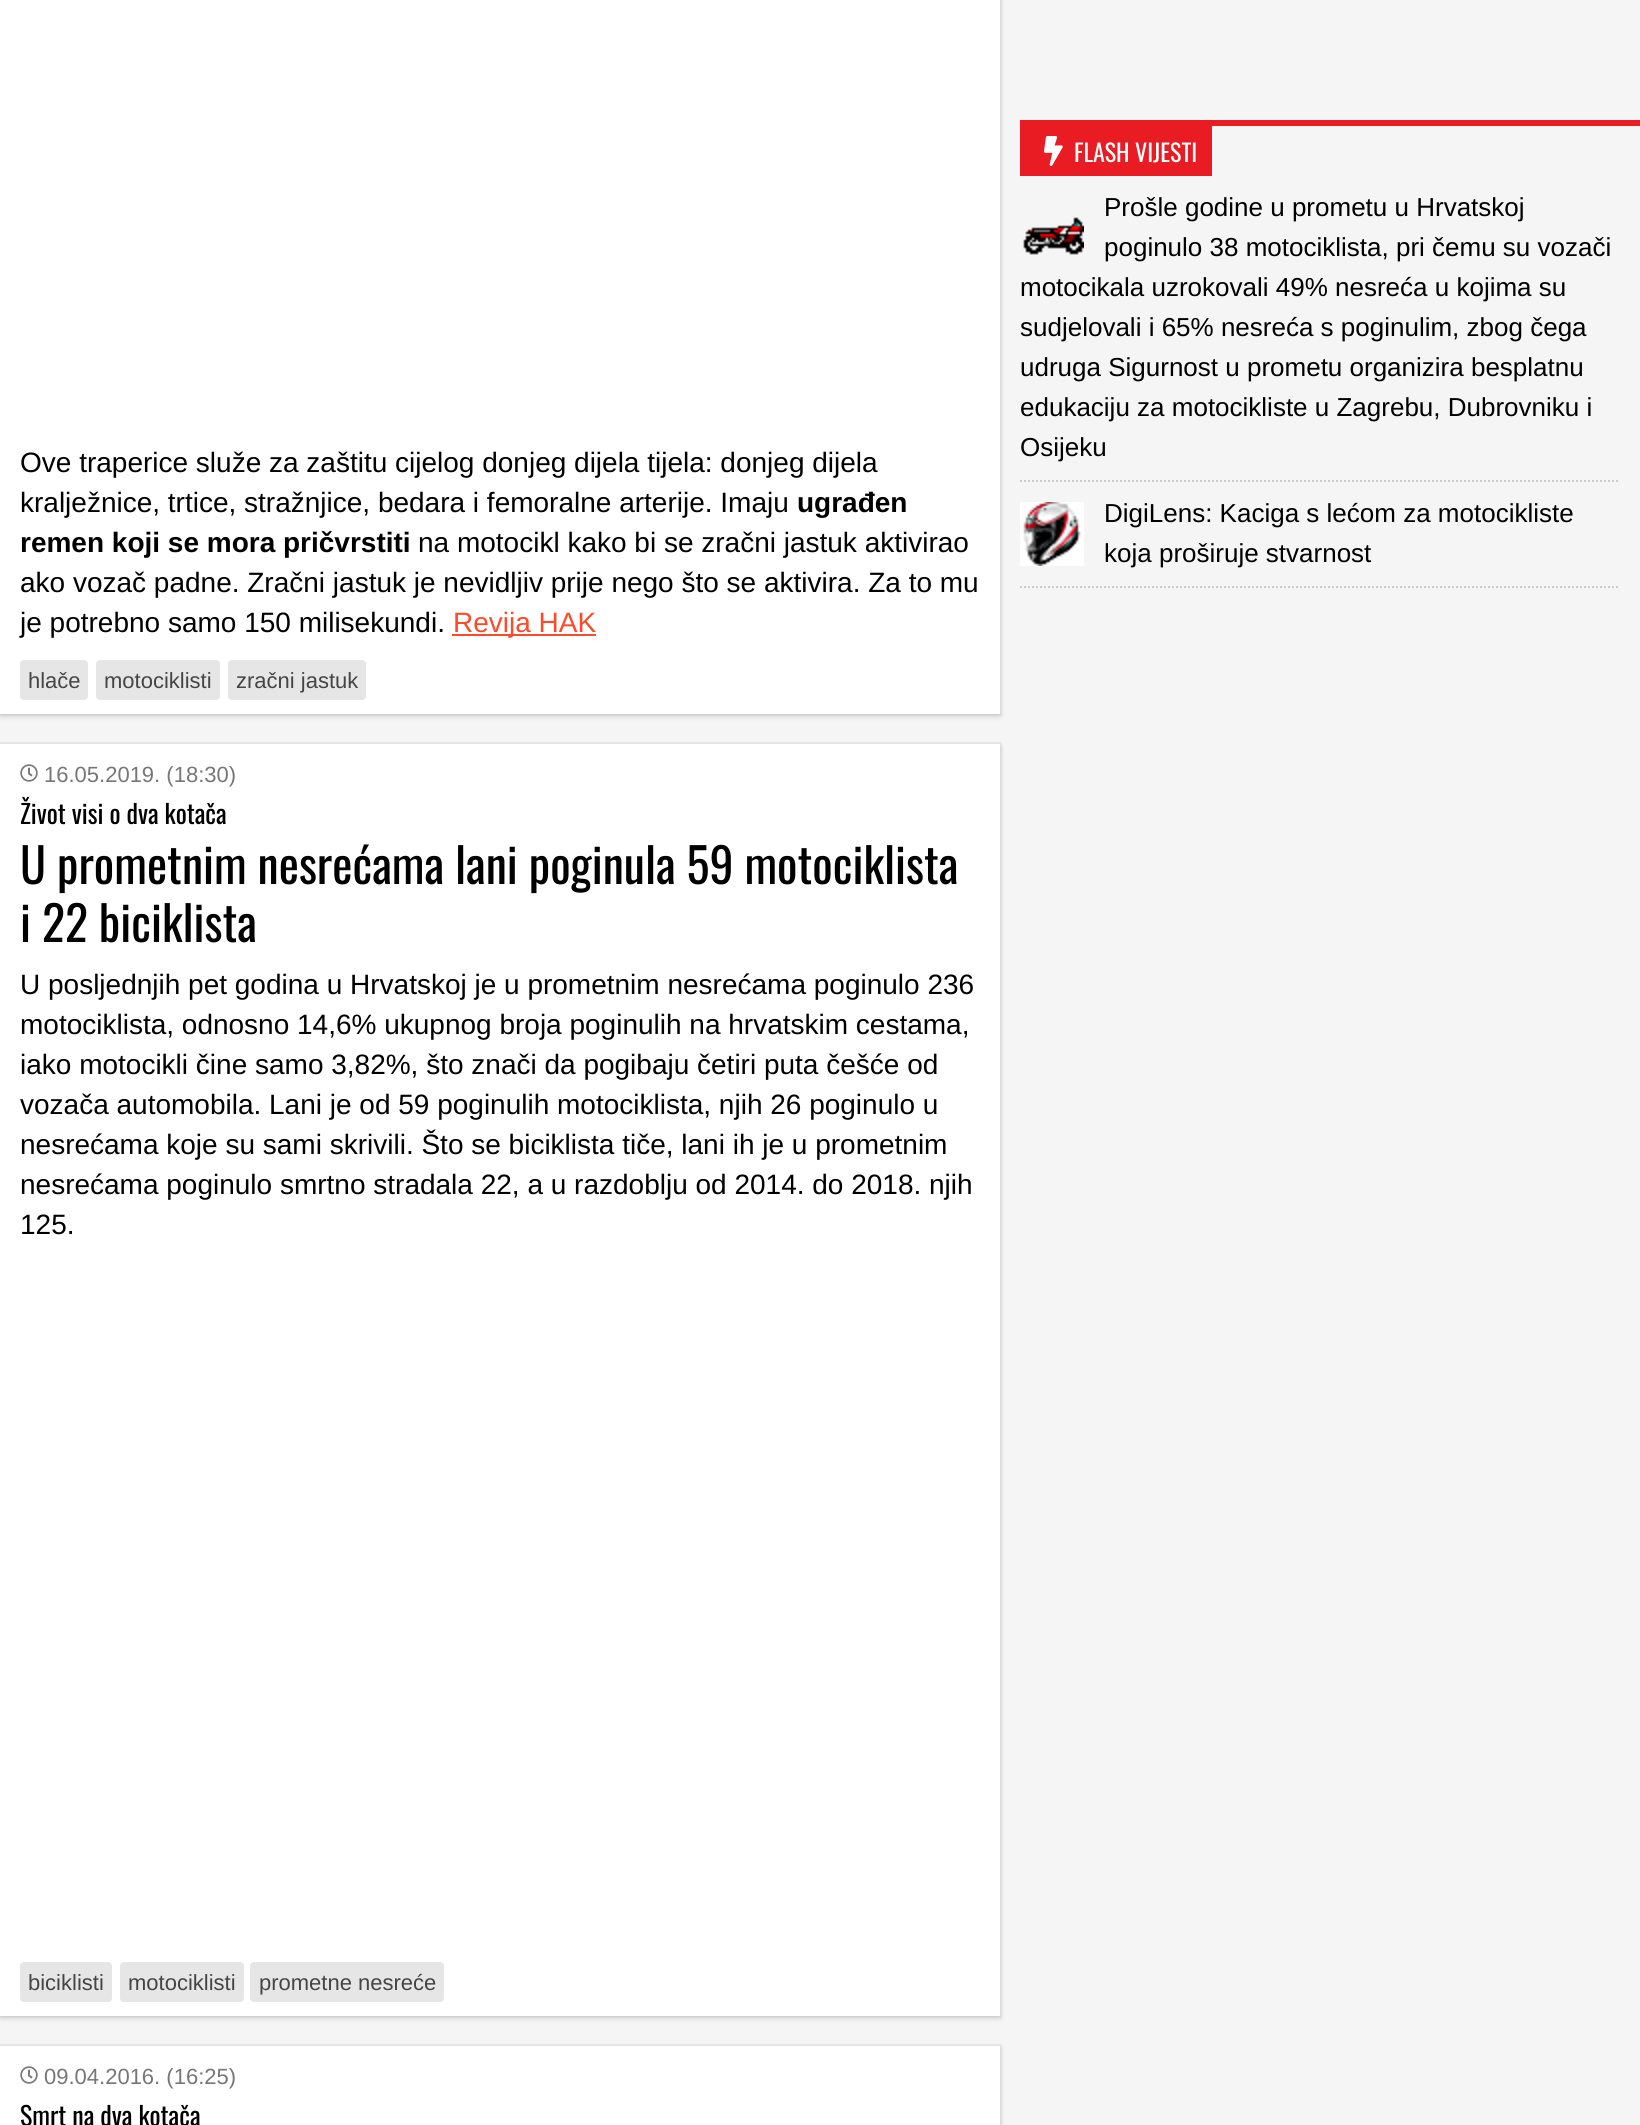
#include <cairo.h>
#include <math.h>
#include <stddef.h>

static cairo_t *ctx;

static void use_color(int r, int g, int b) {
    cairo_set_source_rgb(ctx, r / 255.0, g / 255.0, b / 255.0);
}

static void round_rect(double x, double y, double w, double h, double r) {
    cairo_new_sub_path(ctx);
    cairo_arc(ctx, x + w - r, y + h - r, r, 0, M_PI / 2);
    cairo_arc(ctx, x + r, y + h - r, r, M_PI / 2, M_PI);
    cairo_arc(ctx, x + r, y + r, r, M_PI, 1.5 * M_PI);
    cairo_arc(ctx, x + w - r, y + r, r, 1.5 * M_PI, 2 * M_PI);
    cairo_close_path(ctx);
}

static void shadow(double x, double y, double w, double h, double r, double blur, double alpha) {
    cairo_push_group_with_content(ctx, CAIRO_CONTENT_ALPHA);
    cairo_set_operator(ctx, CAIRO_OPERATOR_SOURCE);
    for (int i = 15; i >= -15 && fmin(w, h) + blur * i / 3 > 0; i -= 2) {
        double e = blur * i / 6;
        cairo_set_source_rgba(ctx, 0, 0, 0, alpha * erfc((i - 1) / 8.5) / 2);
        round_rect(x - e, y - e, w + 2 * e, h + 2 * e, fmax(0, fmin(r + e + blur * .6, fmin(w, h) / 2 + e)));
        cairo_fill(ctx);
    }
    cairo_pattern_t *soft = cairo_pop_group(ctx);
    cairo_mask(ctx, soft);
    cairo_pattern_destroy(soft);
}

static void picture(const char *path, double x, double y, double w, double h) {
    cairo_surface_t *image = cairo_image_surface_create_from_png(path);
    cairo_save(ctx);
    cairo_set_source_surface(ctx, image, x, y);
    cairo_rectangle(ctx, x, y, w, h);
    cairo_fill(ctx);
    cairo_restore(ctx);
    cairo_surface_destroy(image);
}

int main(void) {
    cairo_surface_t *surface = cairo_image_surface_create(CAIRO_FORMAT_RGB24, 1640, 2125);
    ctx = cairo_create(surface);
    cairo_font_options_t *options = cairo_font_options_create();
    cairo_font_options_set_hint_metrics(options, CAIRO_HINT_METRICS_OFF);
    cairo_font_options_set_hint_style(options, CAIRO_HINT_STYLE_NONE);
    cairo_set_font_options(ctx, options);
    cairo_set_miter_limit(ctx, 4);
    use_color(245, 245, 245);
    cairo_paint(ctx);
    use_color(233, 27, 35);
    cairo_rectangle(ctx, 1020, 120, 620, 6);
    cairo_fill(ctx);
    cairo_rectangle(ctx, 1020, 126, 192, 50);
    cairo_fill(ctx);
    picture("img1.png", 1044, 136, 19, 30);
    cairo_select_font_face(ctx, "Oswald", CAIRO_FONT_SLANT_NORMAL, CAIRO_FONT_WEIGHT_NORMAL);
    cairo_set_font_size(ctx, 24);
    use_color(255, 255, 255);
    cairo_move_to(ctx, 1074, 162);
    cairo_show_text(ctx, "FLASH VIJESTI");
    cairo_new_path(ctx);
    cairo_move_to(ctx, 1020, 481);
    cairo_line_to(ctx, 1620, 481);
    use_color(204, 204, 204);
    cairo_set_dash(ctx, (double[]){2, 2}, 2, 0);
    cairo_stroke(ctx);
    cairo_select_font_face(ctx, "Liberation Sans", CAIRO_FONT_SLANT_NORMAL, CAIRO_FONT_WEIGHT_NORMAL);
    cairo_set_font_size(ctx, 26);
    use_color(0, 0, 0);
    cairo_move_to(ctx, 1104, 216);
    cairo_show_text(ctx, "Prošle godine u prometu u Hrvatskoj");
    cairo_move_to(ctx, 1104, 256);
    cairo_show_text(ctx, "poginulo 38 motociklista, pri čemu su vozači");
    cairo_move_to(ctx, 1020, 296);
    cairo_show_text(ctx, "motocikala uzrokovali 49% nesreća u kojima su");
    cairo_move_to(ctx, 1020, 336);
    cairo_show_text(ctx, "sudjelovali i 65% nesreća s poginulim, zbog čega");
    cairo_move_to(ctx, 1020, 376);
    cairo_show_text(ctx, "udruga Sigurnost u prometu organizira besplatnu");
    cairo_move_to(ctx, 1020, 416);
    cairo_show_text(ctx, "edukaciju za motocikliste u Zagrebu, Dubrovniku i");
    cairo_move_to(ctx, 1020, 456);
    cairo_show_text(ctx, "Osijeku");
    picture("img2.png", 1023, 217, 61, 38);
    cairo_new_path(ctx);
    cairo_move_to(ctx, 1020, 587);
    cairo_line_to(ctx, 1620, 587);
    use_color(204, 204, 204);
    cairo_stroke(ctx);
    picture("img3.png", 1020, 502, 64, 64);
    use_color(0, 0, 0);
    cairo_move_to(ctx, 1104, 522);
    cairo_show_text(ctx, "DigiLens: Kaciga s lećom za motocikliste");
    cairo_move_to(ctx, 1104, 562);
    cairo_show_text(ctx, "koja proširuje stvarnost");
    cairo_rectangle(ctx, -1, -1, 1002, 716);
    use_color(235, 235, 235);
    cairo_set_dash(ctx, NULL, 0, 0);
    cairo_stroke(ctx);
    use_color(0, 0, 0);
    shadow(0, -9, 1000, 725, 0, 3, 0.16);
    use_color(255, 255, 255);
    cairo_rectangle(ctx, 0, 0, 1000, 714);
    cairo_fill(ctx);
    cairo_set_font_size(ctx, 28);
    use_color(0, 0, 0);
    cairo_move_to(ctx, 20, 472);
    cairo_show_text(ctx, "Ove traperice služe za zaštitu cijelog donjeg dijela tijela: donjeg dijela");
    cairo_move_to(ctx, 20, 512);
    cairo_show_text(ctx, "kralježnice, trtice, stražnjice, bedara i femoralne arterije. Imaju");
    cairo_select_font_face(ctx, "Liberation Sans", CAIRO_FONT_SLANT_NORMAL, CAIRO_FONT_WEIGHT_BOLD);
    cairo_move_to(ctx, 797, 512);
    cairo_show_text(ctx, "ugrađen");
    cairo_move_to(ctx, 20, 552);
    cairo_show_text(ctx, "remen koji se mora pričvrstiti");
    cairo_select_font_face(ctx, "Liberation Sans", CAIRO_FONT_SLANT_NORMAL, CAIRO_FONT_WEIGHT_NORMAL);
    cairo_move_to(ctx, 418, 552);
    cairo_show_text(ctx, "na motocikl kako bi se zračni jastuk aktivirao");
    cairo_move_to(ctx, 20, 592);
    cairo_show_text(ctx, "ako vozač padne. Zračni jastuk je nevidljiv prije nego što se aktivira. Za to mu");
    cairo_move_to(ctx, 20, 632);
    cairo_show_text(ctx, "je potrebno samo 150 milisekundi.");
    use_color(250, 75, 42);
    cairo_rectangle(ctx, 452, 634, 144, 2);
    cairo_fill(ctx);
    cairo_move_to(ctx, 453, 632);
    cairo_show_text(ctx, "Revija HAK");
    use_color(230, 230, 230);
    round_rect(20, 660, 68, 40, 4);
    cairo_fill(ctx);
    cairo_set_font_size(ctx, 22);
    use_color(69, 69, 69);
    cairo_move_to(ctx, 28, 688);
    cairo_show_text(ctx, "hlače");
    use_color(230, 230, 230);
    round_rect(96, 660, 124, 40, 4);
    cairo_fill(ctx);
    use_color(69, 69, 69);
    cairo_move_to(ctx, 104, 688);
    cairo_show_text(ctx, "motociklisti");
    use_color(230, 230, 230);
    round_rect(228, 660, 138, 40, 4);
    cairo_fill(ctx);
    use_color(69, 69, 69);
    cairo_move_to(ctx, 236, 688);
    cairo_show_text(ctx, "zračni jastuk");
    cairo_rectangle(ctx, -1, 743, 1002, 1274);
    use_color(235, 235, 235);
    cairo_stroke(ctx);
    use_color(0, 0, 0);
    shadow(0, 746, 1000, 1272, 0, 3, 0.16);
    use_color(255, 255, 255);
    cairo_rectangle(ctx, 0, 744, 1000, 1272);
    cairo_fill(ctx);
    picture("img4.png", 20, 764, 18, 18);
    use_color(119, 119, 119);
    cairo_move_to(ctx, 44, 782);
    cairo_show_text(ctx, "16.05.2019. (18:30)");
    cairo_select_font_face(ctx, "Oswald", CAIRO_FONT_SLANT_NORMAL, CAIRO_FONT_WEIGHT_NORMAL);
    cairo_set_font_size(ctx, 26);
    use_color(0, 0, 0);
    cairo_move_to(ctx, 20, 824);
    cairo_show_text(ctx, "Život visi o dva kotača");
    cairo_set_font_size(ctx, 48);
    cairo_move_to(ctx, 20, 884);
    cairo_show_text(ctx, "U prometnim nesrećama lani poginula 59 motociklista");
    cairo_move_to(ctx, 20, 942);
    cairo_show_text(ctx, "i 22 biciklista");
    cairo_select_font_face(ctx, "Liberation Sans", CAIRO_FONT_SLANT_NORMAL, CAIRO_FONT_WEIGHT_NORMAL);
    cairo_set_font_size(ctx, 28);
    cairo_move_to(ctx, 20, 994);
    cairo_show_text(ctx, "U posljednjih pet godina u Hrvatskoj je u prometnim nesrećama poginulo 236");
    cairo_move_to(ctx, 20, 1034);
    cairo_show_text(ctx, "motociklista, odnosno 14,6% ukupnog broja poginulih na hrvatskim cestama,");
    cairo_move_to(ctx, 20, 1074);
    cairo_show_text(ctx, "iako motocikli čine samo 3,82%, što znači da pogibaju četiri puta češće od");
    cairo_move_to(ctx, 20, 1114);
    cairo_show_text(ctx, "vozača automobila. Lani je od 59 poginulih motociklista, njih 26 poginulo u");
    cairo_move_to(ctx, 20, 1154);
    cairo_show_text(ctx, "nesrećama koje su sami skrivili. Što se biciklista tiče, lani ih je u prometnim");
    cairo_move_to(ctx, 20, 1194);
    cairo_show_text(ctx, "nesrećama poginulo smrtno stradala 22, a u razdoblju od 2014. do 2018. njih");
    cairo_move_to(ctx, 20, 1234);
    cairo_show_text(ctx, "125.");
    use_color(230, 230, 230);
    round_rect(20, 1962, 92, 40, 4);
    cairo_fill(ctx);
    cairo_set_font_size(ctx, 22);
    use_color(69, 69, 69);
    cairo_move_to(ctx, 28, 1990);
    cairo_show_text(ctx, "biciklisti");
    use_color(230, 230, 230);
    round_rect(120, 1962, 124, 40, 4);
    cairo_fill(ctx);
    use_color(69, 69, 69);
    cairo_move_to(ctx, 128, 1990);
    cairo_show_text(ctx, "motociklisti");
    use_color(230, 230, 230);
    round_rect(250, 1962, 194, 40, 4);
    cairo_fill(ctx);
    use_color(69, 69, 69);
    cairo_move_to(ctx, 259, 1990);
    cairo_show_text(ctx, "prometne nesreće");
    cairo_rectangle(ctx, -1, 2045, 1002, 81);
    use_color(235, 235, 235);
    cairo_stroke(ctx);
    use_color(0, 0, 0);
    shadow(0, 2048, 1000, 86, 0, 3, 0.16);
    use_color(255, 255, 255);
    cairo_rectangle(ctx, 0, 2046, 1000, 79);
    cairo_fill(ctx);
    picture("img4.png", 20, 2066, 18, 18);
    use_color(119, 119, 119);
    cairo_move_to(ctx, 44, 2084);
    cairo_show_text(ctx, "09.04.2016. (16:25)");
    cairo_select_font_face(ctx, "Oswald", CAIRO_FONT_SLANT_NORMAL, CAIRO_FONT_WEIGHT_NORMAL);
    cairo_set_font_size(ctx, 26);
    use_color(0, 0, 0);
    cairo_move_to(ctx, 20, 2126);
    cairo_show_text(ctx, "Smrt na dva kotača");
    cairo_surface_write_to_png(surface, "result.png");
    cairo_font_options_destroy(options);
    cairo_destroy(ctx);
    cairo_surface_destroy(surface);
    return 0;
}
